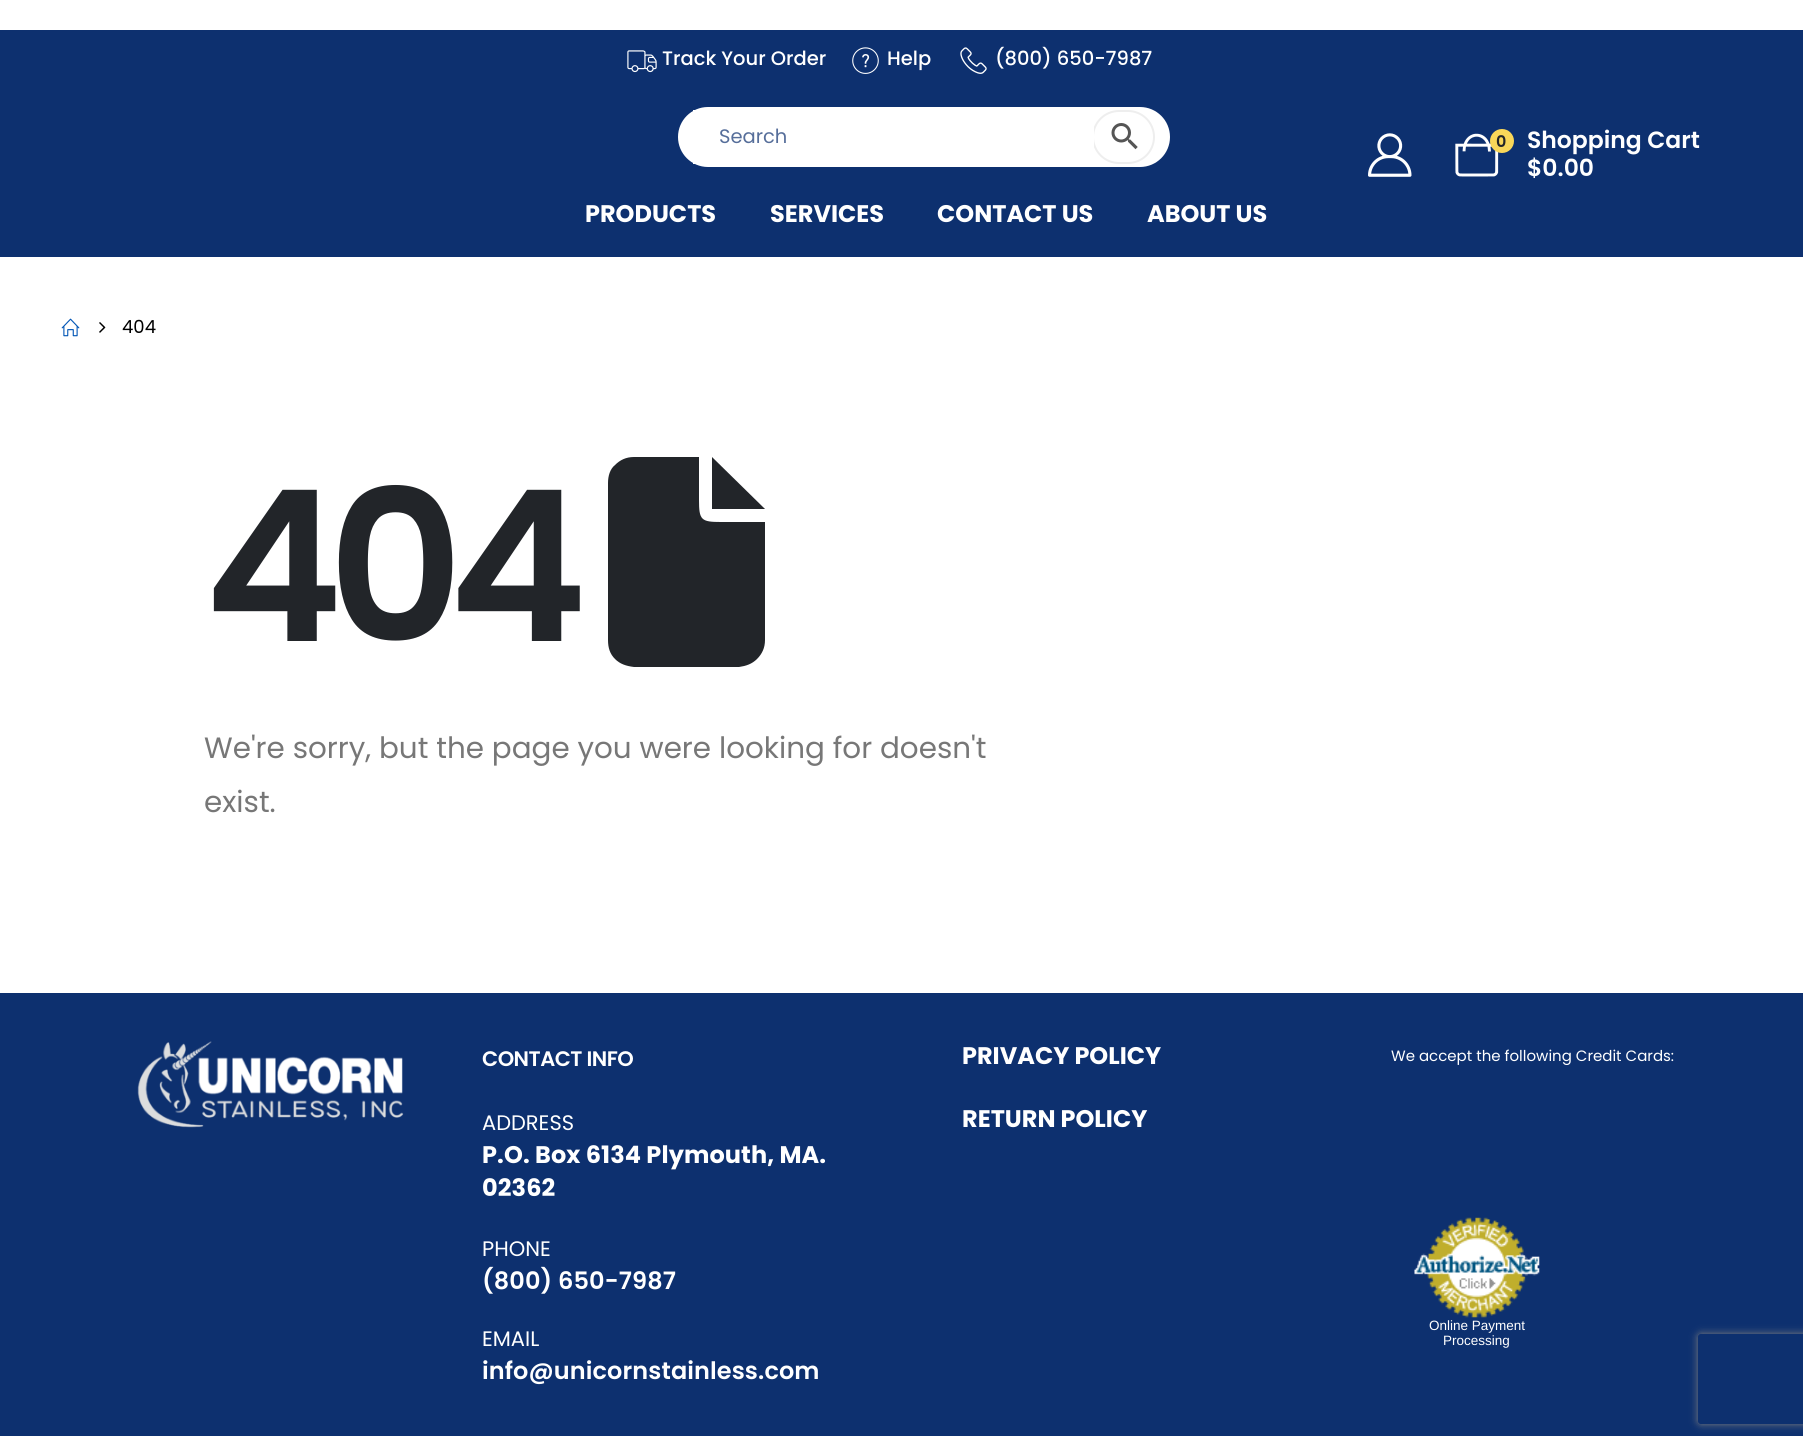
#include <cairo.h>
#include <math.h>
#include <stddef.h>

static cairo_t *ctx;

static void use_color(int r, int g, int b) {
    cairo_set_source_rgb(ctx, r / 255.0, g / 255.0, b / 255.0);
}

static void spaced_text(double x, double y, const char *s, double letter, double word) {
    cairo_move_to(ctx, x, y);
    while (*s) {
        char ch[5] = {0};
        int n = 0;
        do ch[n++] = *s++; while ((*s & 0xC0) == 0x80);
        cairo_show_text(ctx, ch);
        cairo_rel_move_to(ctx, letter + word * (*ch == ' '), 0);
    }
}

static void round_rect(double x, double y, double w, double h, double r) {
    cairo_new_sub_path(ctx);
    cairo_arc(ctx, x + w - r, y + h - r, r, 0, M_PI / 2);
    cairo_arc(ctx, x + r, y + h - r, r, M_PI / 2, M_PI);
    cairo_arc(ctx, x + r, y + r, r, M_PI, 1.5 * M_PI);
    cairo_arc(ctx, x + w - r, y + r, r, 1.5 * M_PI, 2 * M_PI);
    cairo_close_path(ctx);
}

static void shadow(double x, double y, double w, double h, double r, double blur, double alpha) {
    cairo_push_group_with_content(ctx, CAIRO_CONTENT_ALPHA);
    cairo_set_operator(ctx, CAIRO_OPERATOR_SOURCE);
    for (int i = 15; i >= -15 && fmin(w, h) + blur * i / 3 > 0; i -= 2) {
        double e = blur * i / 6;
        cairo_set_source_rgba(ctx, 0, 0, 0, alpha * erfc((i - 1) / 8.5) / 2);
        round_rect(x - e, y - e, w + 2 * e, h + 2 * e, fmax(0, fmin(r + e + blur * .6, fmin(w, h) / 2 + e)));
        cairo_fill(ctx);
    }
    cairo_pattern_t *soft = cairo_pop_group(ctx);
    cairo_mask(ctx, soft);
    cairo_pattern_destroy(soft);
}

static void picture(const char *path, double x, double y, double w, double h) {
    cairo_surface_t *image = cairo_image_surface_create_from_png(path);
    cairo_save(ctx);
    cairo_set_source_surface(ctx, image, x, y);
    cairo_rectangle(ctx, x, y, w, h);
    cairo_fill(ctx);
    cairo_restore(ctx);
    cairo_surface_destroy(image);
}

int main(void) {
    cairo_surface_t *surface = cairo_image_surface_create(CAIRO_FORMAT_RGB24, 1803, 1444);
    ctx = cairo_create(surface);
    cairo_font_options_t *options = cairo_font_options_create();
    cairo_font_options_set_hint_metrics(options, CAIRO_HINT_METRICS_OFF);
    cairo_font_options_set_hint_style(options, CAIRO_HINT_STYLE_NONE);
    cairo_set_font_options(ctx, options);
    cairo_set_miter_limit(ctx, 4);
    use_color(255, 255, 255);
    cairo_paint(ctx);
    use_color(13, 48, 111);
    cairo_rectangle(ctx, 0, 30, 1803, 227);
    cairo_fill(ctx);
    picture("img1.png", 627, 50, 30, 23);
    cairo_select_font_face(ctx, "Poppins Medium", CAIRO_FONT_SLANT_NORMAL, CAIRO_FONT_WEIGHT_NORMAL);
    cairo_set_font_size(ctx, 19.5);
    use_color(255, 255, 255);
    cairo_move_to(ctx, 662, 65);
    cairo_show_text(ctx, "Track Your Order");
    picture("img2.png", 852, 47, 27, 27);
    cairo_move_to(ctx, 887, 65);
    cairo_show_text(ctx, "Help");
    picture("img3.png", 960, 47, 27, 27);
    cairo_move_to(ctx, 995, 65);
    cairo_show_text(ctx, "(800) 650-7987");
    round_rect(685.5, 114.5, 477, 45, 22.5);
    cairo_fill_preserve(ctx);
    cairo_set_line_width(ctx, 15);
    cairo_stroke(ctx);
    round_rect(1093, 111, 61, 52, 26);
    use_color(238, 238, 238);
    cairo_set_line_width(ctx, 2);
    cairo_stroke(ctx);
    cairo_save(ctx);
    cairo_rectangle(ctx, 693, 110, 401, 54);
    cairo_clip(ctx);
    cairo_rectangle(ctx, 694, 103, 399, 67);
    use_color(255, 255, 255);
    cairo_stroke(ctx);
    cairo_restore(ctx);
    cairo_select_font_face(ctx, "Poppins", CAIRO_FONT_SLANT_NORMAL, CAIRO_FONT_WEIGHT_NORMAL);
    use_color(86, 110, 154);
    cairo_move_to(ctx, 719, 143);
    cairo_show_text(ctx, "Search");
    picture("img4.png", 1111, 123, 27, 27);
    cairo_select_font_face(ctx, "Poppins", CAIRO_FONT_SLANT_NORMAL, CAIRO_FONT_WEIGHT_BOLD);
    cairo_set_font_size(ctx, 24);
    use_color(255, 255, 255);
    cairo_move_to(ctx, 585, 222);
    cairo_show_text(ctx, "PRODUCTS");
    cairo_move_to(ctx, 770, 222);
    cairo_show_text(ctx, "SERVICES");
    cairo_move_to(ctx, 937, 222);
    cairo_show_text(ctx, "CONTACT US");
    cairo_move_to(ctx, 1147, 222);
    cairo_show_text(ctx, "ABOUT US");
    picture("img5.png", 1368, 133, 44, 44);
    picture("img6.png", 1455, 133, 44, 44);
    use_color(249, 215, 89);
    cairo_arc(ctx, 1502, 141, 12, 0, 2 * M_PI);
    cairo_fill(ctx);
    cairo_select_font_face(ctx, "Poppins SemiBold", CAIRO_FONT_SLANT_NORMAL, CAIRO_FONT_WEIGHT_NORMAL);
    cairo_set_font_size(ctx, 16);
    use_color(34, 37, 41);
    cairo_move_to(ctx, 1496, 147);
    cairo_show_text(ctx, "0");
    cairo_set_font_size(ctx, 23.5);
    use_color(255, 255, 255);
    cairo_move_to(ctx, 1527, 148);
    cairo_show_text(ctx, "Shopping Cart");
    cairo_move_to(ctx, 1527, 176);
    cairo_show_text(ctx, "$0.00");
    picture("img7.png", 61, 318, 19, 19);
    picture("img8.png", 99, 322, 7, 11);
    cairo_select_font_face(ctx, "Poppins", CAIRO_FONT_SLANT_NORMAL, CAIRO_FONT_WEIGHT_NORMAL);
    cairo_set_font_size(ctx, 18);
    use_color(0, 0, 0);
    cairo_move_to(ctx, 122, 333);
    cairo_show_text(ctx, "404");
    cairo_select_font_face(ctx, "Poppins SemiBold", CAIRO_FONT_SLANT_NORMAL, CAIRO_FONT_WEIGHT_NORMAL);
    cairo_set_font_size(ctx, 210);
    use_color(34, 37, 41);
    spaced_text(204, 641, "404", -15, 0);
    cairo_new_path(ctx);
    cairo_move_to(ctx, 608, 483);
    cairo_curve_to(ctx, 608, 476, 610, 469, 615, 465);
    cairo_curve_to(ctx, 620, 460, 626, 457, 634, 457);
    cairo_line_to(ctx, 699, 457);
    cairo_line_to(ctx, 699, 500);
    cairo_curve_to(ctx, 699, 520, 701, 522, 721, 522);
    cairo_line_to(ctx, 765, 522);
    cairo_line_to(ctx, 765, 640);
    cairo_curve_to(ctx, 765, 648, 762, 654, 757, 659);
    cairo_curve_to(ctx, 752, 664, 746, 666, 739, 667);
    cairo_line_to(ctx, 634, 667);
    cairo_curve_to(ctx, 626, 666, 620, 664, 615, 659);
    cairo_curve_to(ctx, 610, 654, 608, 648, 608, 640);
    cairo_close_path(ctx);
    cairo_move_to(ctx, 765, 509);
    cairo_line_to(ctx, 712, 509);
    cairo_line_to(ctx, 712, 457);
    cairo_close_path(ctx);
    cairo_fill(ctx);
    cairo_select_font_face(ctx, "Poppins", CAIRO_FONT_SLANT_NORMAL, CAIRO_FONT_WEIGHT_NORMAL);
    cairo_set_font_size(ctx, 29.4);
    use_color(119, 119, 119);
    cairo_move_to(ctx, 204, 758);
    cairo_show_text(ctx, "We're sorry, but the page you were looking for doesn't");
    cairo_move_to(ctx, 204, 812);
    cairo_show_text(ctx, "exist.");
    use_color(13, 48, 111);
    cairo_rectangle(ctx, 0, 993, 1803, 443);
    cairo_fill(ctx);
    picture("img9.png", 137, 1041, 267, 87);
    cairo_select_font_face(ctx, "Poppins SemiBold", CAIRO_FONT_SLANT_NORMAL, CAIRO_FONT_WEIGHT_NORMAL);
    cairo_set_font_size(ctx, 21);
    use_color(255, 255, 255);
    spaced_text(482, 1066, "CONTACT INFO", -0.5, 0);
    cairo_select_font_face(ctx, "Poppins", CAIRO_FONT_SLANT_NORMAL, CAIRO_FONT_WEIGHT_NORMAL);
    cairo_move_to(ctx, 482, 1130);
    cairo_show_text(ctx, "ADDRESS");
    cairo_select_font_face(ctx, "Poppins", CAIRO_FONT_SLANT_NORMAL, CAIRO_FONT_WEIGHT_BOLD);
    cairo_set_font_size(ctx, 24);
    spaced_text(482, 1163, "P.O. Box 6134 Plymouth, MA.", 0.1, 0);
    spaced_text(482, 1196, "02362", 0.1, 0);
    cairo_select_font_face(ctx, "Poppins", CAIRO_FONT_SLANT_NORMAL, CAIRO_FONT_WEIGHT_NORMAL);
    cairo_set_font_size(ctx, 21);
    cairo_move_to(ctx, 482, 1256);
    cairo_show_text(ctx, "PHONE");
    cairo_select_font_face(ctx, "Poppins SemiBold", CAIRO_FONT_SLANT_NORMAL, CAIRO_FONT_WEIGHT_NORMAL);
    cairo_set_font_size(ctx, 24);
    spaced_text(482, 1289, "(800) 650-7987", 0.1, 0);
    cairo_select_font_face(ctx, "Poppins", CAIRO_FONT_SLANT_NORMAL, CAIRO_FONT_WEIGHT_NORMAL);
    cairo_set_font_size(ctx, 21);
    cairo_move_to(ctx, 482, 1346);
    cairo_show_text(ctx, "EMAIL");
    cairo_select_font_face(ctx, "Poppins SemiBold", CAIRO_FONT_SLANT_NORMAL, CAIRO_FONT_WEIGHT_NORMAL);
    cairo_set_font_size(ctx, 24);
    spaced_text(482, 1379, "info@unicornstainless.com", 0.1, 0);
    cairo_select_font_face(ctx, "Poppins", CAIRO_FONT_SLANT_NORMAL, CAIRO_FONT_WEIGHT_BOLD);
    cairo_move_to(ctx, 962, 1064);
    cairo_show_text(ctx, "PRIVACY POLICY");
    cairo_move_to(ctx, 962, 1127);
    cairo_show_text(ctx, "RETURN POLICY");
    cairo_select_font_face(ctx, "Poppins", CAIRO_FONT_SLANT_NORMAL, CAIRO_FONT_WEIGHT_NORMAL);
    cairo_set_font_size(ctx, 15);
    cairo_move_to(ctx, 1391, 1061);
    cairo_show_text(ctx, "We accept the following Credit Cards:");
    picture("img10.png", 1414, 1217, 126, 101);
    cairo_select_font_face(ctx, "Liberation Sans", CAIRO_FONT_SLANT_NORMAL, CAIRO_FONT_WEIGHT_NORMAL);
    cairo_set_font_size(ctx, 13.5);
    cairo_move_to(ctx, 1429, 1330);
    cairo_show_text(ctx, "Online Payment");
    cairo_move_to(ctx, 1443, 1345);
    cairo_show_text(ctx, "Processing");
    cairo_save(ctx);
    cairo_set_fill_rule(ctx, CAIRO_FILL_RULE_EVEN_ODD);
    cairo_new_path(ctx);
    cairo_move_to(ctx, 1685, 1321);
    cairo_line_to(ctx, 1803, 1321);
    cairo_line_to(ctx, 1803, 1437);
    cairo_line_to(ctx, 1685, 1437);
    cairo_close_path(ctx);
    cairo_move_to(ctx, 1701, 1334);
    cairo_line_to(ctx, 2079, 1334);
    cairo_curve_to(ctx, 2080.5, 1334, 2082, 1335.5, 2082, 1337);
    cairo_line_to(ctx, 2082, 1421);
    cairo_curve_to(ctx, 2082, 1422.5, 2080.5, 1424, 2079, 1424);
    cairo_line_to(ctx, 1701, 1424);
    cairo_curve_to(ctx, 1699.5, 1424, 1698, 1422.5, 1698, 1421);
    cairo_line_to(ctx, 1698, 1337);
    cairo_curve_to(ctx, 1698, 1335.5, 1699.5, 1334, 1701, 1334);
    cairo_close_path(ctx);
    cairo_clip(ctx);
    use_color(128, 128, 128);
    shadow(1698, 1334, 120, 90, 3, 4, 1);
    cairo_restore(ctx);
    cairo_surface_write_to_png(surface, "result.png");
    cairo_font_options_destroy(options);
    cairo_destroy(ctx);
    cairo_surface_destroy(surface);
    return 0;
}
